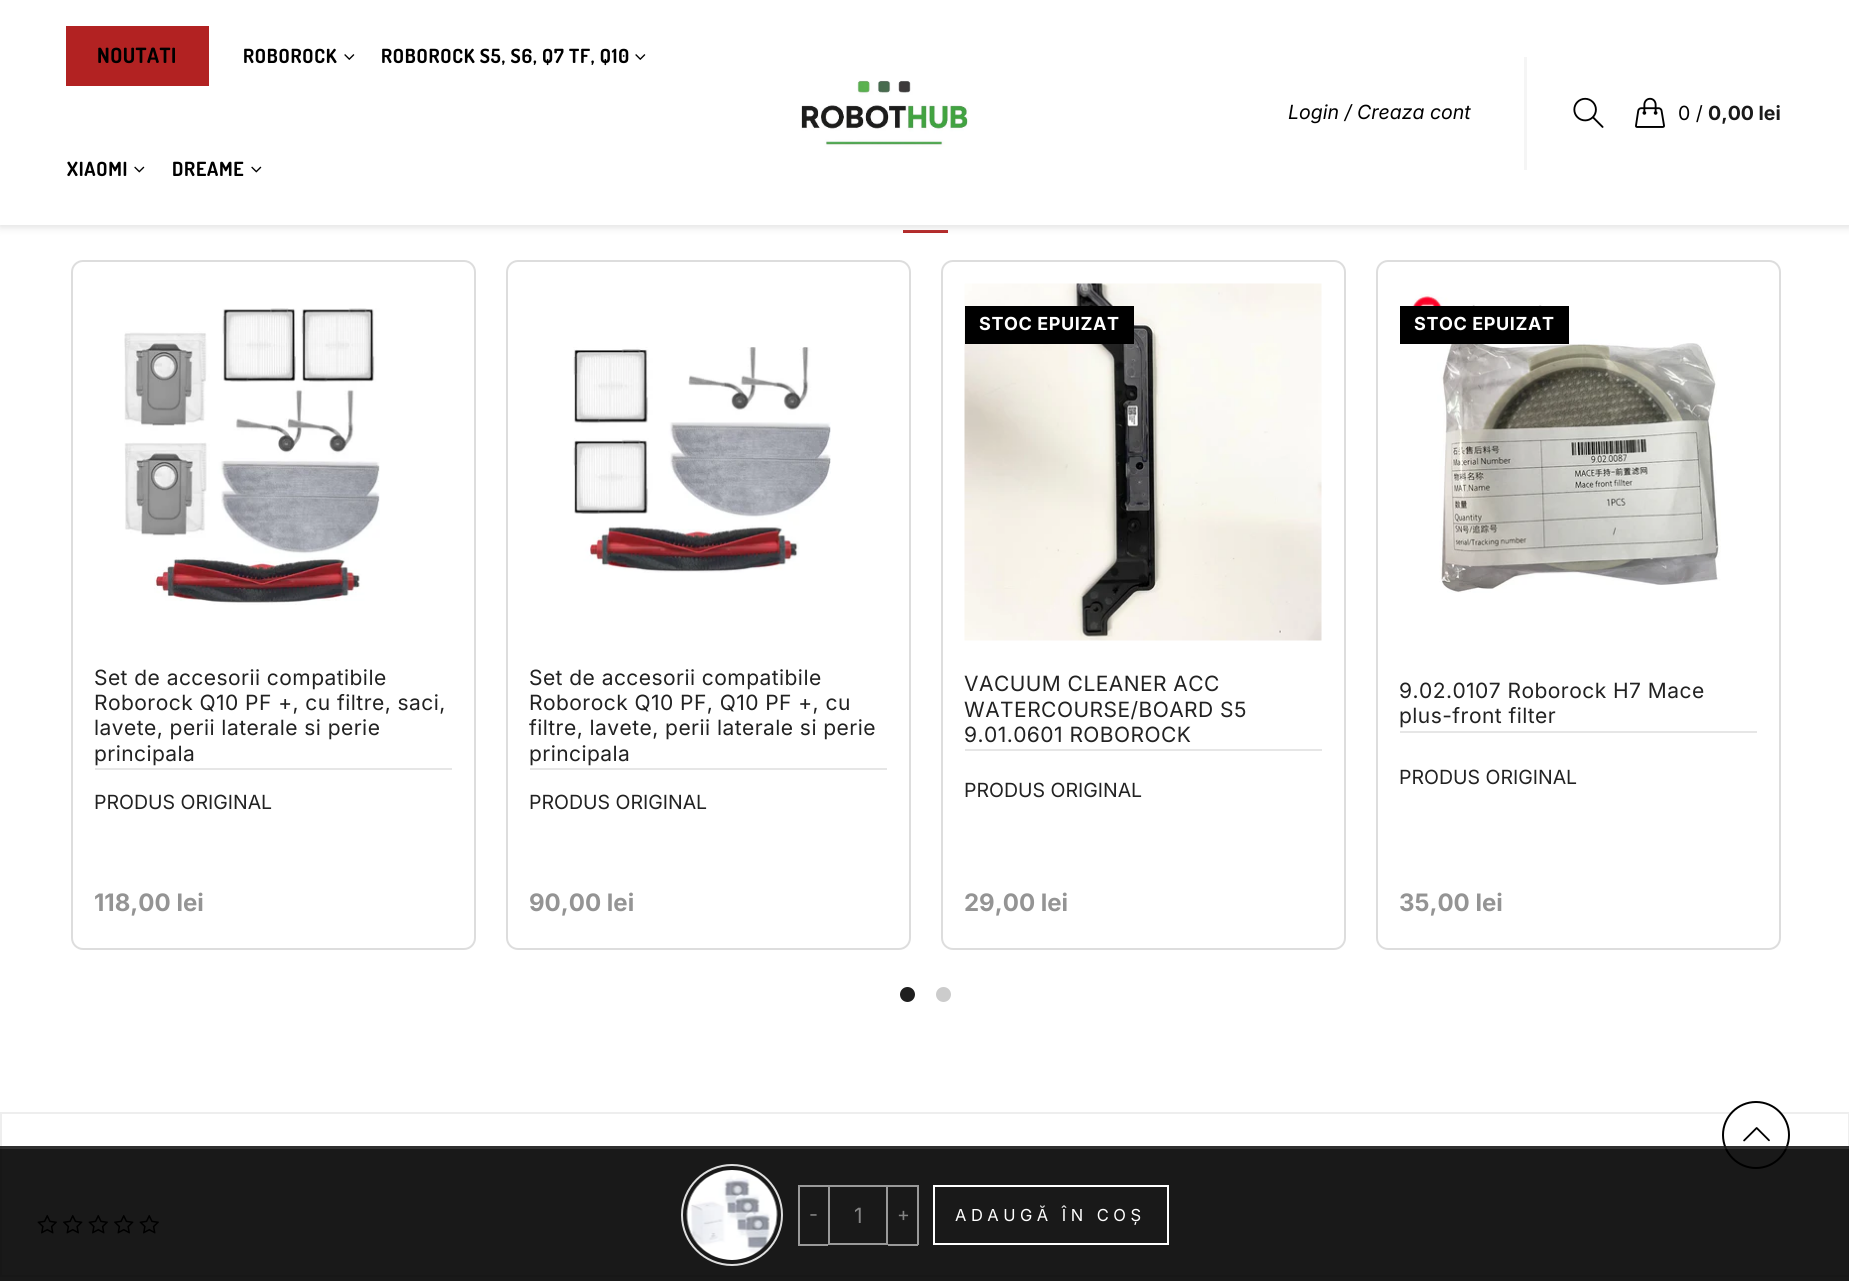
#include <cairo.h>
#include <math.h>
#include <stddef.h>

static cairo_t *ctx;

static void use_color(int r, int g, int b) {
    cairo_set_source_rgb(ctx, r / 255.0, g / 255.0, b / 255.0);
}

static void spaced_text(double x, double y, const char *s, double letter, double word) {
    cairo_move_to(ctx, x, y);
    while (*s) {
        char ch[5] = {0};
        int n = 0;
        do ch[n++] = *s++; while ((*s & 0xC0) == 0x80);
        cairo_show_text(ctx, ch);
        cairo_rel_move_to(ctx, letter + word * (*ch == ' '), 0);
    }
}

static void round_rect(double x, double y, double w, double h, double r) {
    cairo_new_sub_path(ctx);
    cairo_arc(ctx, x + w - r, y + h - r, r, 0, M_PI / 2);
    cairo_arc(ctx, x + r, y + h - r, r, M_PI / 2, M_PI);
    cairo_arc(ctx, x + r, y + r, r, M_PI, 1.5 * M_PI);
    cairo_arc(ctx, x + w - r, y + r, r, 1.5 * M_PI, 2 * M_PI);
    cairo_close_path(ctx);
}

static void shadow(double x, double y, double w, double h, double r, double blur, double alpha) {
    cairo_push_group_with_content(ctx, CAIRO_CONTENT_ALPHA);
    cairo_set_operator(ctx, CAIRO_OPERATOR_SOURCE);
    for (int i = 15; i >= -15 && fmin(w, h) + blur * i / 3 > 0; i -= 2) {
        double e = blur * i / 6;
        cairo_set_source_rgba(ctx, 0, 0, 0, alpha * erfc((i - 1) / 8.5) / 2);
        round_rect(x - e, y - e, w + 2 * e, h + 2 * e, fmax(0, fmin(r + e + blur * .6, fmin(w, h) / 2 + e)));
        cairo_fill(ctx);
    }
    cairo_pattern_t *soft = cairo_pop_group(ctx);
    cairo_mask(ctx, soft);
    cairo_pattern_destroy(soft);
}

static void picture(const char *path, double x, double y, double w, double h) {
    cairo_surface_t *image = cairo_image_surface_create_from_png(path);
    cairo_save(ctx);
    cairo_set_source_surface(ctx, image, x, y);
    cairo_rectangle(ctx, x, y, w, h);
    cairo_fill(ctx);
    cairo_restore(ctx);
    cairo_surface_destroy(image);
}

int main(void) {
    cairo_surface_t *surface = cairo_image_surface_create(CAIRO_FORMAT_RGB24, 1849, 1281);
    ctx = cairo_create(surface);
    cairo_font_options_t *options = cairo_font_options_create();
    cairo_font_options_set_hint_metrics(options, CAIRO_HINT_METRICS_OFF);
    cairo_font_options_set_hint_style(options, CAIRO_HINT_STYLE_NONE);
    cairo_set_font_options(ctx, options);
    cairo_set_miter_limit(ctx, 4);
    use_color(255, 255, 255);
    cairo_paint(ctx);
    use_color(178, 34, 34);
    cairo_rectangle(ctx, 903, 230, 45, 3);
    cairo_fill(ctx);
    use_color(190, 190, 190);
    shadow(0, 2, 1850, 225, 0, 4, 0.5);
    use_color(255, 255, 255);
    cairo_rectangle(ctx, 0, 0, 1849, 225);
    cairo_fill(ctx);
    use_color(178, 34, 34);
    cairo_rectangle(ctx, 66, 26, 143, 60);
    cairo_fill(ctx);
    cairo_select_font_face(ctx, "Dosis", CAIRO_FONT_SLANT_NORMAL, CAIRO_FONT_WEIGHT_BOLD);
    cairo_set_font_size(ctx, 21);
    use_color(0, 0, 0);
    spaced_text(97, 63, "NOUTATI", 0.45, 0);
    cairo_set_font_size(ctx, 19.5);
    spaced_text(243, 63, "ROBOROCK", 0.75, 0);
    picture("img1.png", 344, 54, 11, 6);
    spaced_text(381, 63, "ROBOROCK S5, S6, Q7 TF, Q10", 0.75, 0);
    picture("img1.png", 635, 54, 11, 6);
    spaced_text(67, 176, "XIAOMI", 0.75, 0);
    picture("img2.png", 134, 166, 11, 7);
    spaced_text(172, 176, "DREAME", 0.75, 0);
    picture("img2.png", 251, 166, 11, 7);
    picture("img3.png", 801, 80, 168, 67);
    use_color(245, 245, 245);
    cairo_rectangle(ctx, 1524, 57, 3, 113);
    cairo_fill(ctx);
    cairo_select_font_face(ctx, "Inter", CAIRO_FONT_SLANT_ITALIC, CAIRO_FONT_WEIGHT_NORMAL);
    use_color(0, 0, 0);
    cairo_move_to(ctx, 1288, 119);
    cairo_show_text(ctx, "Login / Creaza cont");
    picture("img4.png", 1573, 97, 31, 31);
    picture("img5.png", 1635, 97, 30, 31);
    cairo_select_font_face(ctx, "Inter", CAIRO_FONT_SLANT_NORMAL, CAIRO_FONT_WEIGHT_NORMAL);
    cairo_move_to(ctx, 1678, 120);
    cairo_show_text(ctx, "0 /");
    cairo_select_font_face(ctx, "Inter", CAIRO_FONT_SLANT_NORMAL, CAIRO_FONT_WEIGHT_BOLD);
    use_color(26, 26, 26);
    cairo_move_to(ctx, 1708, 120);
    cairo_show_text(ctx, "0,00 lei");
    round_rect(72, 261, 403, 688, 11);
    use_color(221, 221, 221);
    cairo_stroke(ctx);
    picture("img6.png", 124, 308, 256, 297);
    use_color(230, 230, 230);
    cairo_rectangle(ctx, 95, 768, 357, 2);
    cairo_fill(ctx);
    cairo_select_font_face(ctx, "Inter", CAIRO_FONT_SLANT_NORMAL, CAIRO_FONT_WEIGHT_NORMAL);
    cairo_set_font_size(ctx, 21);
    use_color(34, 34, 34);
    spaced_text(94, 685, "Set de accesorii compatibile", 0.45, 0);
    spaced_text(94, 710, "Roborock Q10 PF +, cu filtre, saci,", 0.45, 0);
    spaced_text(94, 735, "lavete, perii laterale si perie", 0.45, 0);
    spaced_text(94, 761, "principala", 0.45, 0);
    cairo_set_font_size(ctx, 19.5);
    cairo_move_to(ctx, 94, 809);
    cairo_show_text(ctx, "PRODUS ORIGINAL");
    cairo_save(ctx);
    cairo_rectangle(ctx, 95, 878, 180, 48);
    cairo_clip(ctx);
    cairo_select_font_face(ctx, "Inter", CAIRO_FONT_SLANT_NORMAL, CAIRO_FONT_WEIGHT_BOLD);
    cairo_set_font_size(ctx, 24);
    use_color(148, 148, 148);
    cairo_move_to(ctx, 94, 911);
    cairo_show_text(ctx, "118,00 lei");
    cairo_restore(ctx);
    round_rect(507, 261, 403, 688, 11);
    use_color(221, 221, 221);
    cairo_stroke(ctx);
    picture("img7.png", 573, 347, 258, 226);
    use_color(230, 230, 230);
    cairo_rectangle(ctx, 530, 768, 357, 2);
    cairo_fill(ctx);
    cairo_set_font_size(ctx, 21);
    use_color(34, 34, 34);
    spaced_text(529, 685, "Set de accesorii compatibile", 0.45, 0);
    spaced_text(529, 710, "Roborock Q10 PF, Q10 PF +, cu", 0.45, 0);
    spaced_text(529, 735, "filtre, lavete, perii laterale si perie", 0.45, 0);
    spaced_text(529, 761, "principala", 0.45, 0);
    cairo_set_font_size(ctx, 19.5);
    cairo_move_to(ctx, 529, 809);
    cairo_show_text(ctx, "PRODUS ORIGINAL");
    cairo_select_font_face(ctx, "Inter", CAIRO_FONT_SLANT_NORMAL, CAIRO_FONT_WEIGHT_BOLD);
    cairo_set_font_size(ctx, 24);
    use_color(148, 148, 148);
    cairo_move_to(ctx, 529, 911);
    cairo_show_text(ctx, "90,00 lei");
    round_rect(942, 261, 403, 688, 11);
    use_color(221, 221, 221);
    cairo_stroke(ctx);
    picture("img8.png", 964, 283, 358, 358);
    use_color(0, 0, 0);
    cairo_rectangle(ctx, 965, 306, 169, 38);
    cairo_fill(ctx);
    cairo_set_font_size(ctx, 18);
    use_color(255, 255, 255);
    spaced_text(979, 330, "STOC EPUIZAT", 0.6, 0);
    use_color(230, 230, 230);
    cairo_rectangle(ctx, 965, 749, 357, 2);
    cairo_fill(ctx);
    cairo_select_font_face(ctx, "Inter", CAIRO_FONT_SLANT_NORMAL, CAIRO_FONT_WEIGHT_NORMAL);
    cairo_set_font_size(ctx, 21);
    use_color(34, 34, 34);
    spaced_text(964, 691, "VACUUM CLEANER ACC", 0.45, 0);
    spaced_text(964, 717, "WATERCOURSE/BOARD S5", 0.45, 0);
    spaced_text(964, 742, "9.01.0601 ROBOROCK", 0.45, 0);
    cairo_set_font_size(ctx, 19.5);
    cairo_move_to(ctx, 964, 797);
    cairo_show_text(ctx, "PRODUS ORIGINAL");
    cairo_select_font_face(ctx, "Inter", CAIRO_FONT_SLANT_NORMAL, CAIRO_FONT_WEIGHT_BOLD);
    cairo_set_font_size(ctx, 24);
    use_color(148, 148, 148);
    cairo_move_to(ctx, 964, 911);
    cairo_show_text(ctx, "29,00 lei");
    round_rect(1377, 261, 403, 688, 11);
    use_color(221, 221, 221);
    cairo_stroke(ctx);
    picture("img9.png", 1410, 294, 311, 299);
    use_color(0, 0, 0);
    cairo_rectangle(ctx, 1400, 306, 169, 38);
    cairo_fill(ctx);
    cairo_set_font_size(ctx, 18);
    use_color(255, 255, 255);
    spaced_text(1414, 330, "STOC EPUIZAT", 0.6, 0);
    use_color(230, 230, 230);
    cairo_rectangle(ctx, 1400, 731, 357, 2);
    cairo_fill(ctx);
    cairo_select_font_face(ctx, "Inter", CAIRO_FONT_SLANT_NORMAL, CAIRO_FONT_WEIGHT_NORMAL);
    cairo_set_font_size(ctx, 21);
    use_color(34, 34, 34);
    spaced_text(1399, 698, "9.02.0107 Roborock H7 Mace", 0.45, 0);
    spaced_text(1399, 723, "plus-front filter", 0.45, 0);
    cairo_set_font_size(ctx, 19.5);
    cairo_move_to(ctx, 1399, 784);
    cairo_show_text(ctx, "PRODUS ORIGINAL");
    cairo_select_font_face(ctx, "Inter", CAIRO_FONT_SLANT_NORMAL, CAIRO_FONT_WEIGHT_BOLD);
    cairo_set_font_size(ctx, 24);
    use_color(148, 148, 148);
    cairo_move_to(ctx, 1399, 911);
    cairo_show_text(ctx, "35,00 lei");
    use_color(31, 31, 31);
    cairo_new_path(ctx);
    cairo_arc(ctx, 907.5, 994.5, 7.5, 0, 2 * M_PI);
    cairo_fill(ctx);
    use_color(204, 204, 204);
    cairo_arc(ctx, 943.5, 994.5, 7.5, 0, 2 * M_PI);
    cairo_fill(ctx);
    cairo_rectangle(ctx, 1, 1113, 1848, 163);
    use_color(238, 238, 238);
    cairo_stroke(ctx);
    picture("img10.png", 37, 1214, 20, 20);
    picture("img11.png", 63, 1214, 20, 20);
    picture("img10.png", 88, 1214, 20, 20);
    picture("img11.png", 114, 1214, 20, 20);
    picture("img10.png", 139, 1214, 20, 20);
    use_color(255, 255, 255);
    cairo_arc(ctx, 1756, 1135, 33, 0, 2 * M_PI);
    cairo_fill_preserve(ctx);
    use_color(0, 0, 0);
    cairo_stroke(ctx);
    picture("img12.png", 1743, 1127, 27, 15);
    cairo_set_source_rgba(ctx, 0, 0, 0, 0.9);
    cairo_rectangle(ctx, 0, 1146, 1849, 135);
    cairo_fill(ctx);
    cairo_set_source_rgba(ctx, 1, 1, 1, 0.1);
    cairo_rectangle(ctx, 0, 1146, 1849, 3);
    cairo_fill(ctx);
    cairo_arc(ctx, 732, 1215, 50, 0, 2 * M_PI);
    use_color(221, 221, 221);
    cairo_stroke(ctx);
    picture("img13.png", 686, 1170, 92, 90);
    use_color(153, 153, 153);
    cairo_rectangle(ctx, 798, 1185, 30, 2);
    cairo_fill(ctx);
    cairo_rectangle(ctx, 798, 1244, 30, 2);
    cairo_fill(ctx);
    cairo_rectangle(ctx, 798, 1185, 2, 60);
    cairo_fill(ctx);
    cairo_select_font_face(ctx, "Inter", CAIRO_FONT_SLANT_NORMAL, CAIRO_FONT_WEIGHT_NORMAL);
    cairo_set_font_size(ctx, 19.5);
    use_color(132, 132, 132);
    cairo_move_to(ctx, 809, 1221);
    cairo_show_text(ctx, "-");
    cairo_rectangle(ctx, 829, 1186, 58, 58);
    use_color(153, 153, 153);
    cairo_stroke(ctx);
    cairo_set_font_size(ctx, 21);
    use_color(132, 132, 132);
    cairo_move_to(ctx, 854, 1223);
    cairo_show_text(ctx, "1");
    use_color(153, 153, 153);
    cairo_rectangle(ctx, 888, 1185, 30, 2);
    cairo_fill(ctx);
    cairo_rectangle(ctx, 917, 1185, 2, 60);
    cairo_fill(ctx);
    cairo_rectangle(ctx, 888, 1244, 30, 2);
    cairo_fill(ctx);
    cairo_set_font_size(ctx, 19.5);
    use_color(132, 132, 132);
    cairo_move_to(ctx, 897, 1221);
    cairo_show_text(ctx, "+");
    cairo_rectangle(ctx, 934, 1186, 234, 58);
    use_color(255, 255, 255);
    cairo_stroke(ctx);
    cairo_set_font_size(ctx, 16.5);
    spaced_text(955, 1221, "ADAUGĂ ÎN COȘ", 4.5, 0);
    cairo_surface_write_to_png(surface, "result.png");
    cairo_font_options_destroy(options);
    cairo_destroy(ctx);
    cairo_surface_destroy(surface);
    return 0;
}
